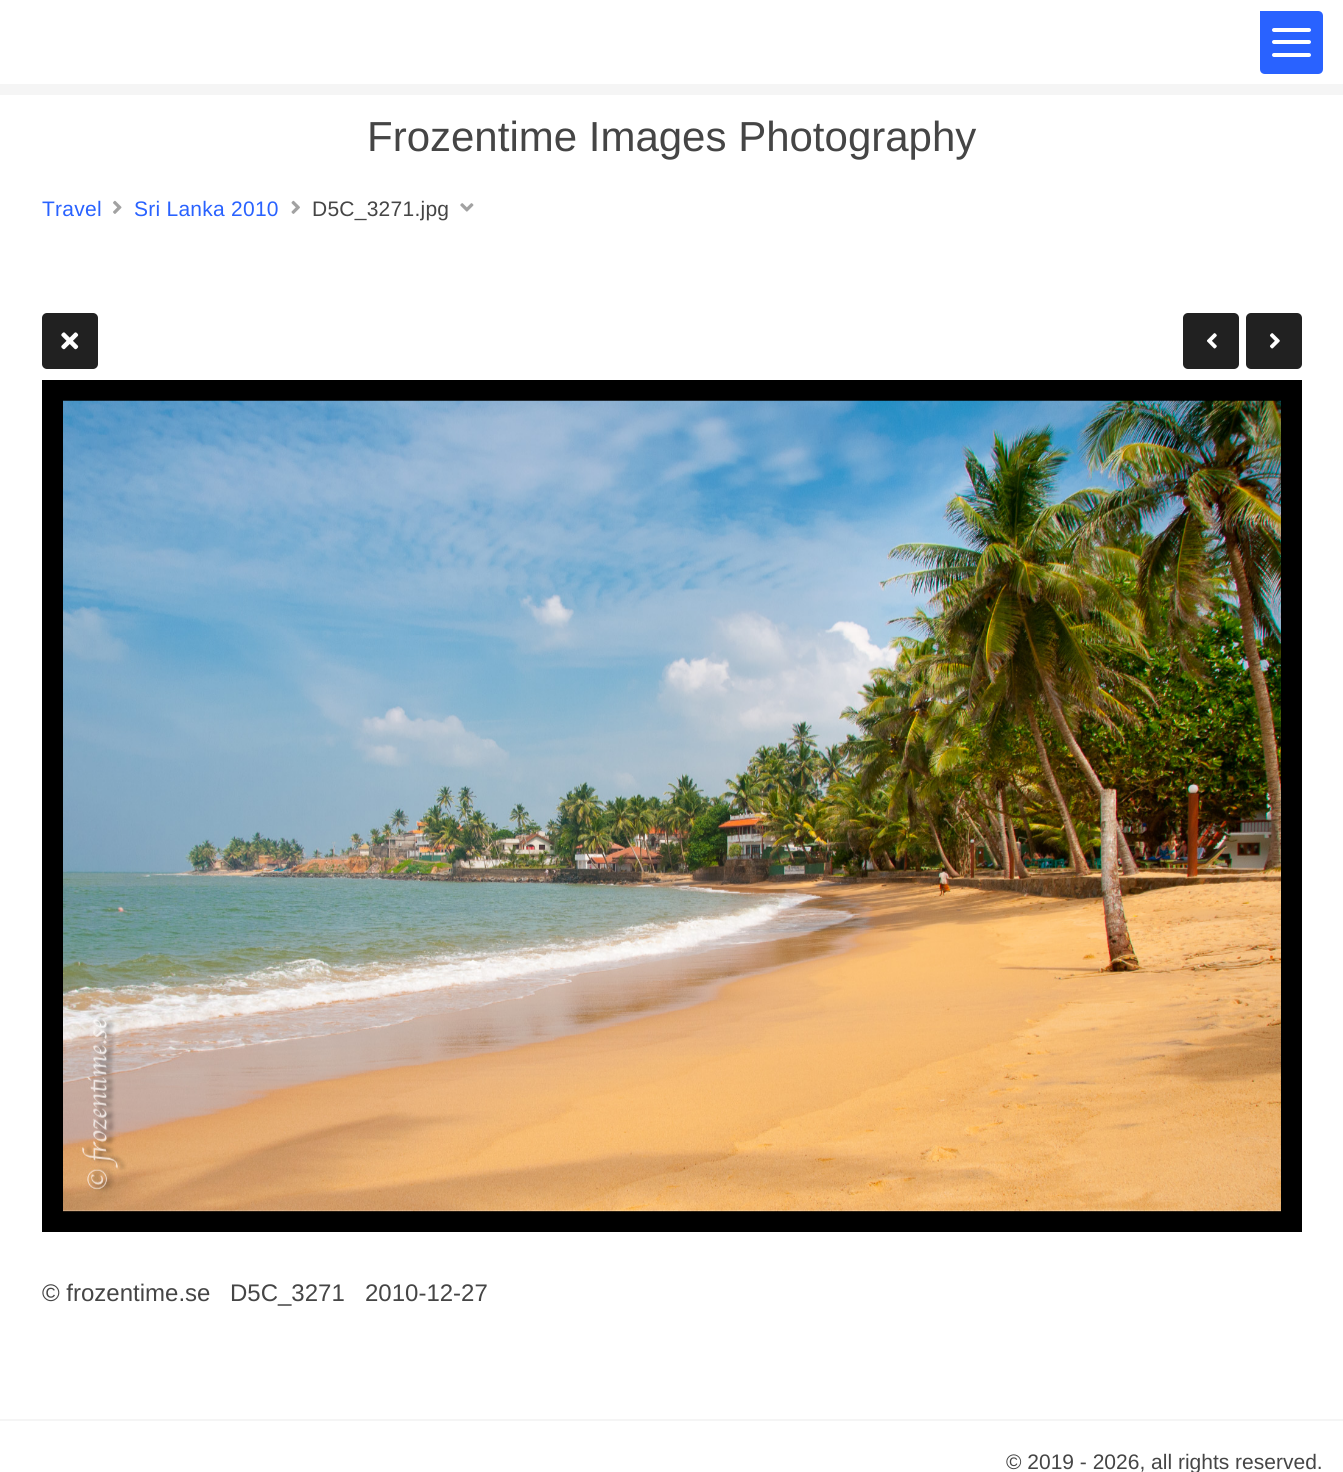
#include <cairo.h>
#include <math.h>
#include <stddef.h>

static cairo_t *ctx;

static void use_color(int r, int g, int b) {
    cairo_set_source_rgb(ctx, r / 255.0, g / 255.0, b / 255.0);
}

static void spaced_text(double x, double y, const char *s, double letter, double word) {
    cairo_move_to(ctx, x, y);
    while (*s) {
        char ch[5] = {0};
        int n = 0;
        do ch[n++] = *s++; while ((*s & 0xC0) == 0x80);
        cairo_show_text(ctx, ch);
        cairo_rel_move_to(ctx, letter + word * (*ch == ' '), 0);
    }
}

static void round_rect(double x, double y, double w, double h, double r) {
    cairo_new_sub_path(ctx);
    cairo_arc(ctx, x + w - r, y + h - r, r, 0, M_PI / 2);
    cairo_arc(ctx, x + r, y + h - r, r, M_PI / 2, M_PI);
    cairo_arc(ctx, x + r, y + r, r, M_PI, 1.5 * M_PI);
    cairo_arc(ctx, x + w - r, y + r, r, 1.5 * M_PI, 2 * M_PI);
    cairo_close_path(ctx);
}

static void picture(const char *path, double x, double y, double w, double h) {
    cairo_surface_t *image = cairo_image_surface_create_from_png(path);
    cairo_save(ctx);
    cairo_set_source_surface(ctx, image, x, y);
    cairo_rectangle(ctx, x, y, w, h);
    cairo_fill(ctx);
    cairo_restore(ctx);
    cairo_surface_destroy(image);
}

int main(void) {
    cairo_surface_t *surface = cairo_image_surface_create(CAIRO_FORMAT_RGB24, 1343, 1472);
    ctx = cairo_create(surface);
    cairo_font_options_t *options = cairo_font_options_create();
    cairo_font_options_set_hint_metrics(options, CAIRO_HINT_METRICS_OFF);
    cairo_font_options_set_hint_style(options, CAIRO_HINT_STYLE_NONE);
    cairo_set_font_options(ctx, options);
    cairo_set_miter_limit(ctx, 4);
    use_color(255, 255, 255);
    cairo_paint(ctx);
    use_color(41, 98, 255);
    cairo_new_path(ctx);
    cairo_move_to(ctx, 1260, 11);
    cairo_line_to(ctx, 1318, 11);
    cairo_curve_to(ctx, 1321, 11, 1323, 13, 1323, 16);
    cairo_line_to(ctx, 1323, 69);
    cairo_curve_to(ctx, 1323, 72, 1321, 74, 1318, 74);
    cairo_line_to(ctx, 1265, 74);
    cairo_curve_to(ctx, 1262, 74, 1260, 72, 1260, 69);
    cairo_close_path(ctx);
    cairo_fill(ctx);
    use_color(255, 255, 255);
    round_rect(1272, 28, 39, 4, 2);
    cairo_fill(ctx);
    round_rect(1272, 40, 39, 4, 2);
    cairo_fill(ctx);
    round_rect(1272, 53, 39, 4, 2);
    cairo_fill(ctx);
    use_color(245, 245, 245);
    cairo_rectangle(ctx, 0, 84, 1343, 11);
    cairo_fill(ctx);
    cairo_select_font_face(ctx, "Liberation Sans", CAIRO_FONT_SLANT_NORMAL, CAIRO_FONT_WEIGHT_NORMAL);
    cairo_set_font_size(ctx, 42);
    use_color(69, 69, 69);
    cairo_move_to(ctx, 367, 151);
    cairo_show_text(ctx, "Frozentime Images Photography");
    cairo_set_font_size(ctx, 21);
    use_color(41, 98, 255);
    spaced_text(42, 216, "Travel", 0.25, 0);
    picture("img1.png", 113, 200, 9, 14);
    spaced_text(134, 216, "Sri Lanka 2010", 0.25, 0);
    picture("img2.png", 291, 200, 9, 14);
    use_color(69, 69, 69);
    spaced_text(312, 216, "D5C_3271.jpg", 0.25, 0);
    picture("img3.png", 460, 203, 14, 9);
    use_color(33, 33, 33);
    round_rect(42, 313, 56, 56, 5);
    cairo_fill(ctx);
    picture("img4.png", 61, 332, 18, 18);
    round_rect(1183, 313, 56, 56, 5);
    cairo_fill(ctx);
    picture("img5.png", 1207, 333, 10, 16);
    round_rect(1246, 313, 56, 56, 5);
    cairo_fill(ctx);
    picture("img6.png", 1270, 333, 10, 16);
    cairo_rectangle(ctx, 52.5, 390.5, 1239, 831);
    use_color(0, 0, 0);
    cairo_set_line_width(ctx, 21);
    cairo_stroke(ctx);
    picture("img7.png", 63, 400, 1218, 812);
    cairo_set_font_size(ctx, 24);
    use_color(69, 69, 69);
    cairo_move_to(ctx, 42, 1301);
    cairo_show_text(ctx, "© frozentime.se");
    cairo_move_to(ctx, 230, 1301);
    cairo_show_text(ctx, "D5C_3271");
    cairo_move_to(ctx, 365, 1301);
    cairo_show_text(ctx, "2010-12-27");
    use_color(245, 245, 245);
    cairo_rectangle(ctx, 0, 1419, 1343, 2);
    cairo_fill(ctx);
    cairo_set_font_size(ctx, 21);
    use_color(69, 69, 69);
    cairo_move_to(ctx, 1006, 1469);
    cairo_show_text(ctx, "© 2019 - 2026, all rights reserved.");
    cairo_surface_write_to_png(surface, "result.png");
    cairo_font_options_destroy(options);
    cairo_destroy(ctx);
    cairo_surface_destroy(surface);
    return 0;
}
